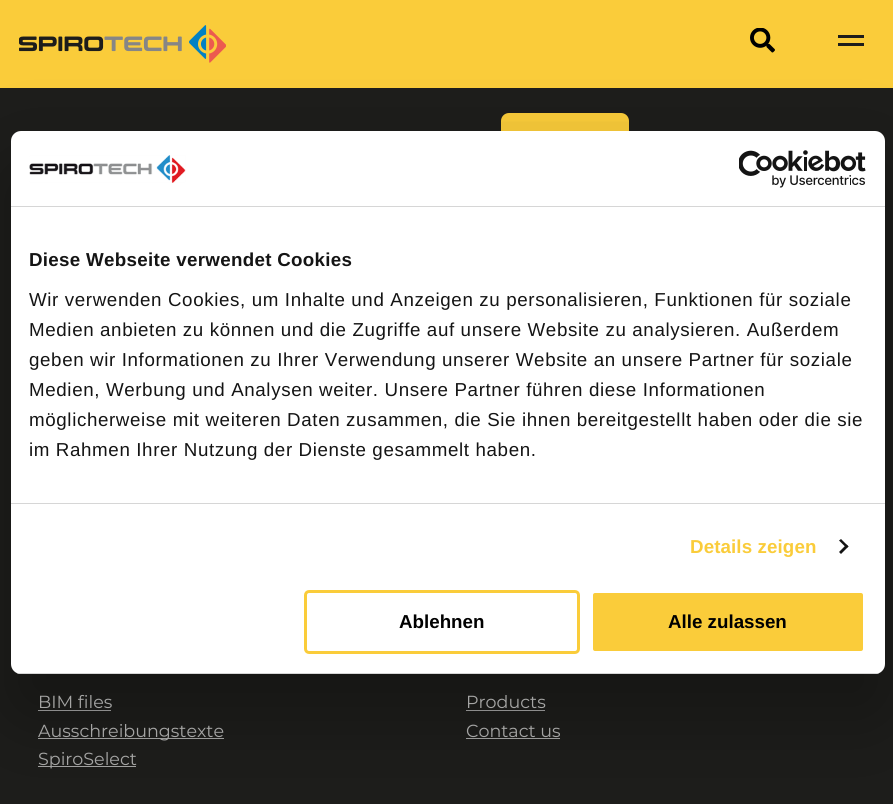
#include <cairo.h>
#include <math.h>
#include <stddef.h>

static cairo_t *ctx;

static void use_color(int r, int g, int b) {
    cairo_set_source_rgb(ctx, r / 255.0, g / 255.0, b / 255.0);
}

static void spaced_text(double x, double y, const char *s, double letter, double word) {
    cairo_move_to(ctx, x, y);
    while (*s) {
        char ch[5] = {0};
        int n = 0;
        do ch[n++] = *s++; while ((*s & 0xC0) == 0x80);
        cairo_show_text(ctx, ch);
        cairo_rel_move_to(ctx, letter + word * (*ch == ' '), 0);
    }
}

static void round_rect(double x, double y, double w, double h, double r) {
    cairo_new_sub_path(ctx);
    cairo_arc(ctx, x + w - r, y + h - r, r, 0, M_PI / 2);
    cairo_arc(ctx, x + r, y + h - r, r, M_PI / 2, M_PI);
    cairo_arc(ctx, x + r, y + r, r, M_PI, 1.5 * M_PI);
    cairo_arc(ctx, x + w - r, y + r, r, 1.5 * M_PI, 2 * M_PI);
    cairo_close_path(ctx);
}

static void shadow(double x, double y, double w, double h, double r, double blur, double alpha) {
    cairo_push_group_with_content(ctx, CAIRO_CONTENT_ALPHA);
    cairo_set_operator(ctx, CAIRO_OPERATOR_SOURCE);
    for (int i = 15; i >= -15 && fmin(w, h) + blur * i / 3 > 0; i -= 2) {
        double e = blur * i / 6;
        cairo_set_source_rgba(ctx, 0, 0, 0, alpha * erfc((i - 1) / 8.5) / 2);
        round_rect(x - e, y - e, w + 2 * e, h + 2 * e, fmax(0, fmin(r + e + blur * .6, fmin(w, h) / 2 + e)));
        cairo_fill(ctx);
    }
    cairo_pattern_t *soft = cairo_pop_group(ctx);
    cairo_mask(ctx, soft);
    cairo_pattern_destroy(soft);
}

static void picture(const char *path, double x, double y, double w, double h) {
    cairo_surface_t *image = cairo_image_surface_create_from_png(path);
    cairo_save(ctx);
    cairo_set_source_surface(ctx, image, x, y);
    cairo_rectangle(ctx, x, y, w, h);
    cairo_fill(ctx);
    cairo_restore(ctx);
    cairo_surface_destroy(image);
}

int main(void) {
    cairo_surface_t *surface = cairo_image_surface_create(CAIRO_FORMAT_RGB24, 893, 804);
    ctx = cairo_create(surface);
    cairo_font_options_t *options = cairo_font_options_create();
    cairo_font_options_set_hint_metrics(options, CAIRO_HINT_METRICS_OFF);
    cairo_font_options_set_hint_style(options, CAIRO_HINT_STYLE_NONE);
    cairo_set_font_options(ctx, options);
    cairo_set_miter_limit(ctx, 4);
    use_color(29, 29, 27);
    cairo_paint(ctx);
    use_color(250, 204, 58);
    cairo_rectangle(ctx, 0, 0, 893, 88);
    cairo_fill(ctx);
    picture("img1.png", 19, 25, 207, 38);
    use_color(29, 29, 27);
    cairo_rectangle(ctx, 838, 35, 26, 3);
    cairo_fill(ctx);
    cairo_rectangle(ctx, 838, 43, 26, 3);
    cairo_fill(ctx);
    picture("img2.png", 750, 28, 25, 25);
    use_color(250, 204, 58);
    round_rect(501, 113, 128, 47, 8);
    cairo_fill(ctx);
    use_color(165, 165, 164);
    cairo_rectangle(ctx, 38, 710, 73, 1);
    cairo_fill(ctx);
    cairo_rectangle(ctx, 38, 738, 186, 1);
    cairo_fill(ctx);
    cairo_rectangle(ctx, 38, 766, 98, 1);
    cairo_fill(ctx);
    cairo_rectangle(ctx, 466, 710, 79, 1);
    cairo_fill(ctx);
    cairo_rectangle(ctx, 466, 738, 94, 1);
    cairo_fill(ctx);
    use_color(0, 0, 0);
    shadow(11, 171, 874, 543, 10, 42.5, 0.3);
    use_color(255, 255, 255);
    round_rect(11, 131, 874, 543, 10);
    cairo_fill(ctx);
    use_color(214, 214, 214);
    cairo_rectangle(ctx, 11, 206, 874, 1);
    cairo_fill(ctx);
    picture("img3.png", 29, 155, 157, 28);
    picture("img4.png", 739, 150, 127, 38);
    cairo_rectangle(ctx, 11, 503, 874, 1);
    cairo_fill(ctx);
    cairo_select_font_face(ctx, "Liberation Sans", CAIRO_FONT_SLANT_NORMAL, CAIRO_FONT_WEIGHT_BOLD);
    cairo_set_font_size(ctx, 18.75);
    use_color(20, 20, 20);
    spaced_text(29, 266, "Diese Webseite verwendet Cookies", 0.3, 0);
    cairo_select_font_face(ctx, "Liberation Sans", CAIRO_FONT_SLANT_NORMAL, CAIRO_FONT_WEIGHT_NORMAL);
    spaced_text(29, 306, "Wir verwenden Cookies, um Inhalte und Anzeigen zu personalisieren, Funktionen für soziale", 0.62, 0);
    spaced_text(29, 336, "Medien anbieten zu können und die Zugriffe auf unsere Website zu analysieren. Außerdem", 0.62, 0);
    spaced_text(29, 366, "geben wir Informationen zu Ihrer Verwendung unserer Website an unsere Partner für soziale", 0.62, 0);
    spaced_text(29, 396, "Medien, Werbung und Analysen weiter. Unsere Partner führen diese Informationen", 0.62, 0);
    spaced_text(29, 426, "möglicherweise mit weiteren Daten zusammen, die Sie ihnen bereitgestellt haben oder die sie", 0.62, 0);
    spaced_text(29, 456, "im Rahmen Ihrer Nutzung der Dienste gesammelt haben.", 0.62, 0);
    cairo_select_font_face(ctx, "Liberation Sans", CAIRO_FONT_SLANT_NORMAL, CAIRO_FONT_WEIGHT_BOLD);
    use_color(250, 204, 58);
    spaced_text(690, 553, "Details zeigen", 0.1, 0);
    use_color(20, 20, 20);
    cairo_new_path(ctx);
    cairo_move_to(ctx, 841, 539);
    cairo_line_to(ctx, 848.5, 546.5);
    cairo_line_to(ctx, 846.5, 548);
    cairo_line_to(ctx, 839, 540.5);
    cairo_close_path(ctx);
    cairo_fill(ctx);
    cairo_new_path(ctx);
    cairo_move_to(ctx, 846.5, 544.5);
    cairo_line_to(ctx, 848.5, 546.5);
    cairo_line_to(ctx, 841, 554);
    cairo_line_to(ctx, 839, 552);
    cairo_close_path(ctx);
    cairo_fill(ctx);
    cairo_save(ctx);
    round_rect(11, 131, 874, 543, 10);
    cairo_clip(ctx);
    use_color(214, 214, 214);
    cairo_rectangle(ctx, 11, 673, 874, 1);
    cairo_fill(ctx);
    cairo_restore(ctx);
    round_rect(305.5, 591.5, 273, 61, 3.5);
    use_color(250, 204, 58);
    cairo_set_line_width(ctx, 3);
    cairo_stroke(ctx);
    use_color(0, 0, 0);
    cairo_move_to(ctx, 399, 628);
    cairo_show_text(ctx, "Ablehnen");
    use_color(250, 204, 58);
    round_rect(591.5, 591.5, 273, 61, 3.5);
    cairo_fill_preserve(ctx);
    use_color(255, 255, 255);
    cairo_stroke(ctx);
    use_color(0, 0, 0);
    cairo_move_to(ctx, 668, 628);
    cairo_show_text(ctx, "Alle zulassen");
    cairo_select_font_face(ctx, "Montserrat", CAIRO_FONT_SLANT_NORMAL, CAIRO_FONT_WEIGHT_NORMAL);
    cairo_set_font_size(ctx, 17.5);
    use_color(165, 165, 164);
    cairo_move_to(ctx, 38, 708);
    cairo_show_text(ctx, "BIM files");
    cairo_move_to(ctx, 38, 737);
    cairo_show_text(ctx, "Ausschreibungstexte");
    cairo_move_to(ctx, 38, 765);
    cairo_show_text(ctx, "SpiroSelect");
    cairo_move_to(ctx, 466, 708);
    cairo_show_text(ctx, "Products");
    cairo_move_to(ctx, 466, 737);
    cairo_show_text(ctx, "Contact us");
    cairo_surface_write_to_png(surface, "result.png");
    cairo_font_options_destroy(options);
    cairo_destroy(ctx);
    cairo_surface_destroy(surface);
    return 0;
}
